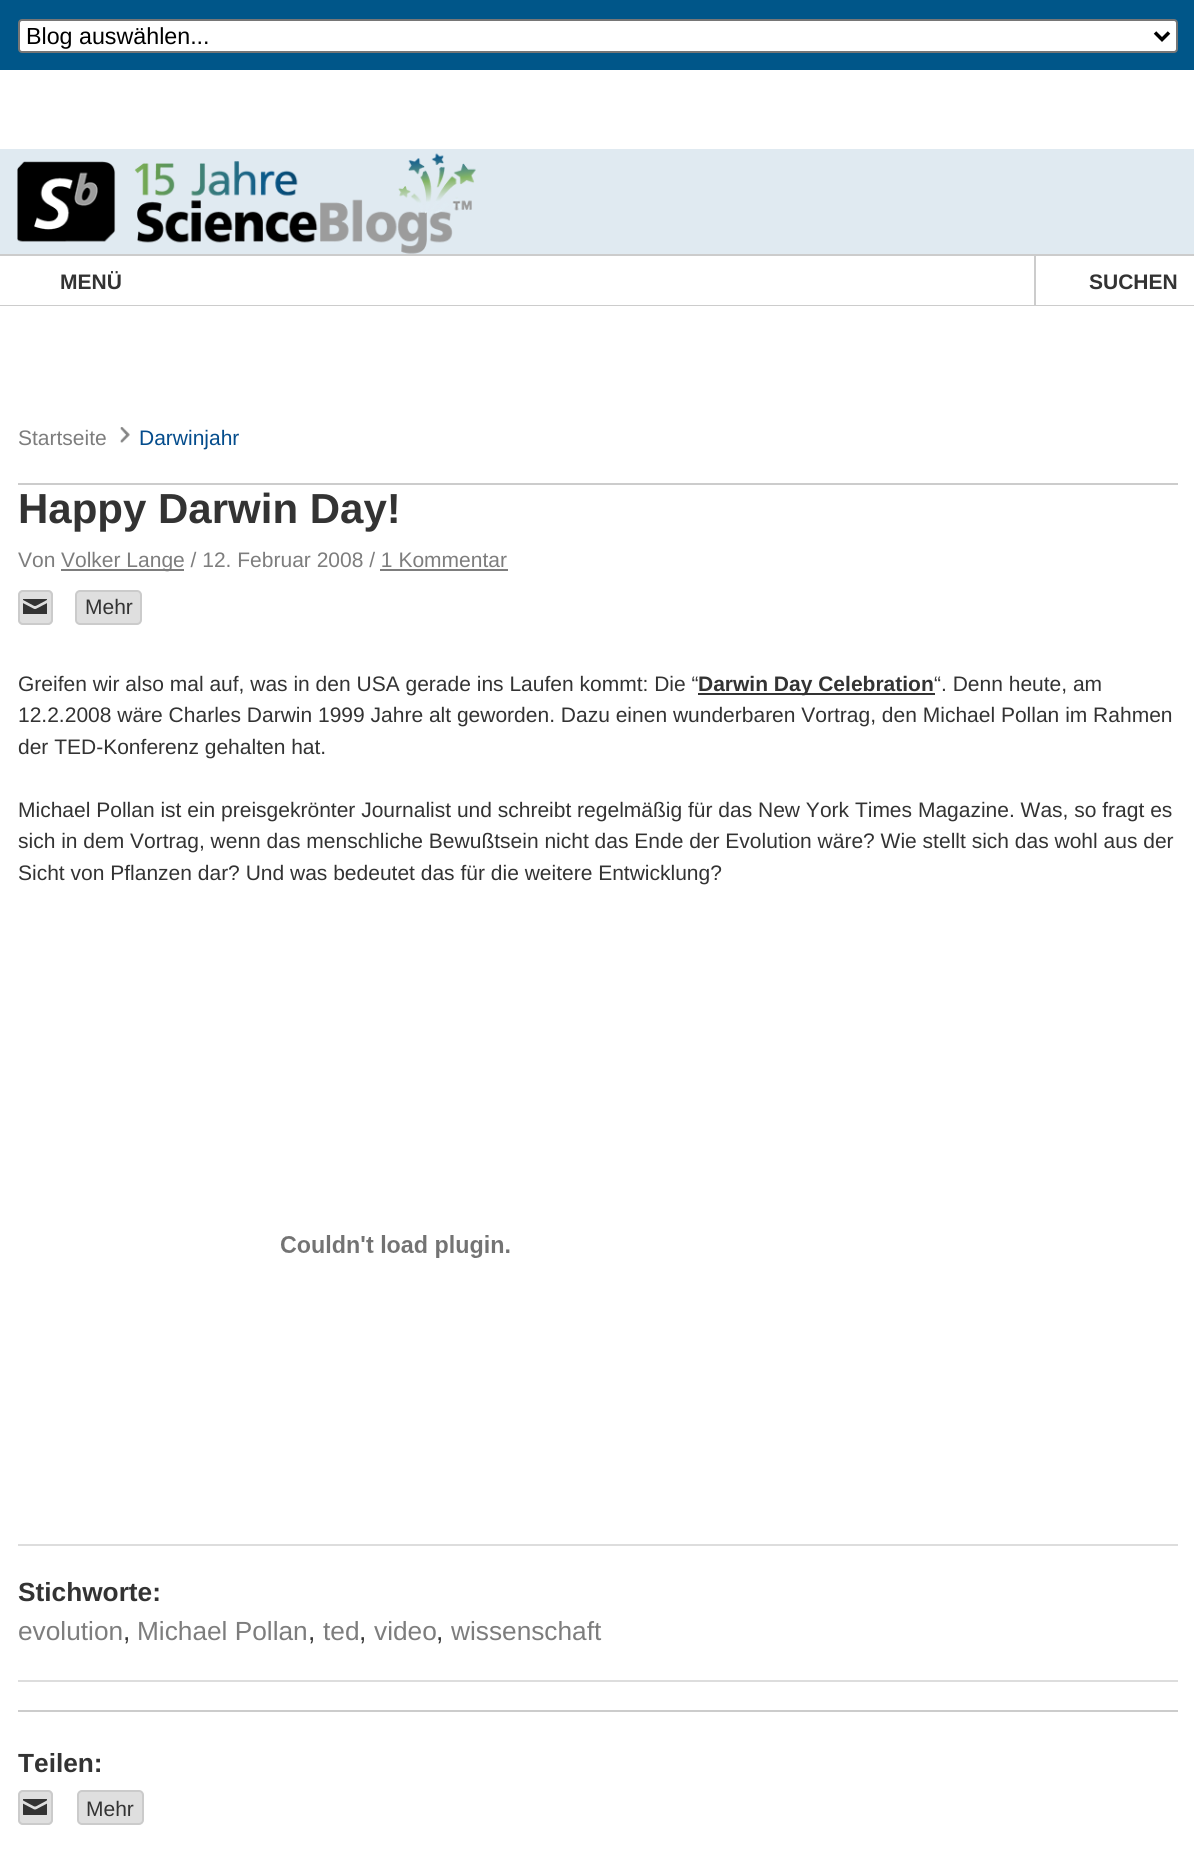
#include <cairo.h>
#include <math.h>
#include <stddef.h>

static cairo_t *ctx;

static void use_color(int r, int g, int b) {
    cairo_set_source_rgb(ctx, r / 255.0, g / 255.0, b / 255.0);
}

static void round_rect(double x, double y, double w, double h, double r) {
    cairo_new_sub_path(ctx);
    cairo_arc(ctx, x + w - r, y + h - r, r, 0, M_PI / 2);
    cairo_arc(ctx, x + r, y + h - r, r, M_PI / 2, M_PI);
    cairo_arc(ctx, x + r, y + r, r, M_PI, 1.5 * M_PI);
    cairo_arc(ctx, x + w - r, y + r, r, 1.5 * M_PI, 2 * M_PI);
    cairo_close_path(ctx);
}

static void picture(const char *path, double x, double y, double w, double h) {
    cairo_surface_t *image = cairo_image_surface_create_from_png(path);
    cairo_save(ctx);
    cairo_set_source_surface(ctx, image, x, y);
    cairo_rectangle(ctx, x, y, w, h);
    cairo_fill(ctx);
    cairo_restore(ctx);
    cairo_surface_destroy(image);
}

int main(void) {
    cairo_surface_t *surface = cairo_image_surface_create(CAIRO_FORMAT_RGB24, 1194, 1869);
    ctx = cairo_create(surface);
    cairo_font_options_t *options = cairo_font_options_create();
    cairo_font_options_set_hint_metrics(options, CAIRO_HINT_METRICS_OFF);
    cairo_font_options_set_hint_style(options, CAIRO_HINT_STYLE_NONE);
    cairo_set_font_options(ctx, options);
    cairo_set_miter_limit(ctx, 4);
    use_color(255, 255, 255);
    cairo_paint(ctx);
    use_color(224, 234, 241);
    cairo_rectangle(ctx, 0, 149, 1194, 105);
    cairo_fill(ctx);
    use_color(0, 86, 137);
    cairo_rectangle(ctx, 0, 0, 1194, 70);
    cairo_fill(ctx);
    use_color(255, 255, 255);
    round_rect(19, 20, 1158, 32, 3);
    cairo_fill_preserve(ctx);
    use_color(118, 118, 118);
    cairo_stroke(ctx);
    cairo_new_path(ctx);
    cairo_move_to(ctx, 1155, 32.5);
    cairo_line_to(ctx, 1162, 39.5);
    cairo_line_to(ctx, 1169, 32.5);
    use_color(0, 0, 0);
    cairo_set_line_width(ctx, 3.5);
    cairo_stroke(ctx);
    cairo_select_font_face(ctx, "Liberation Sans", CAIRO_FONT_SLANT_NORMAL, CAIRO_FONT_WEIGHT_NORMAL);
    cairo_set_font_size(ctx, 23.25);
    cairo_move_to(ctx, 26, 44);
    cairo_show_text(ctx, "Blog auswählen...");
    picture("img1.png", 17, 153, 459, 101);
    use_color(204, 204, 204);
    cairo_rectangle(ctx, 0, 254, 1194, 2);
    cairo_fill(ctx);
    cairo_rectangle(ctx, 0, 305, 1194, 1);
    cairo_fill(ctx);
    cairo_select_font_face(ctx, "Liberation Sans", CAIRO_FONT_SLANT_NORMAL, CAIRO_FONT_WEIGHT_BOLD);
    cairo_set_font_size(ctx, 21);
    use_color(51, 51, 51);
    cairo_move_to(ctx, 60, 289);
    cairo_show_text(ctx, "MENÜ");
    use_color(204, 204, 204);
    cairo_rectangle(ctx, 1034, 256, 2, 49);
    cairo_fill(ctx);
    use_color(51, 51, 51);
    cairo_move_to(ctx, 1089, 289);
    cairo_show_text(ctx, "SUCHEN");
    use_color(204, 204, 204);
    cairo_rectangle(ctx, 18, 483, 1160, 2);
    cairo_fill(ctx);
    cairo_select_font_face(ctx, "Liberation Sans", CAIRO_FONT_SLANT_NORMAL, CAIRO_FONT_WEIGHT_NORMAL);
    use_color(125, 125, 125);
    cairo_move_to(ctx, 18, 445);
    cairo_show_text(ctx, "Startseite");
    picture("img2.png", 120, 427, 10, 16);
    use_color(4, 76, 140);
    cairo_move_to(ctx, 139, 445);
    cairo_show_text(ctx, "Darwinjahr");
    cairo_select_font_face(ctx, "Liberation Sans", CAIRO_FONT_SLANT_NORMAL, CAIRO_FONT_WEIGHT_BOLD);
    cairo_set_font_size(ctx, 42);
    use_color(51, 51, 51);
    cairo_move_to(ctx, 18, 523);
    cairo_show_text(ctx, "Happy Darwin Day!");
    cairo_select_font_face(ctx, "Liberation Sans", CAIRO_FONT_SLANT_NORMAL, CAIRO_FONT_WEIGHT_NORMAL);
    cairo_set_font_size(ctx, 21);
    use_color(125, 125, 125);
    cairo_move_to(ctx, 18, 567);
    cairo_show_text(ctx, "Von");
    cairo_rectangle(ctx, 61, 569, 123, 2);
    cairo_fill(ctx);
    cairo_move_to(ctx, 61, 567);
    cairo_show_text(ctx, "Volker Lange / 12. Februar 2008 / 1 Kommentar");
    cairo_rectangle(ctx, 380, 569, 128, 2);
    cairo_fill(ctx);
    use_color(223, 223, 223);
    round_rect(18, 590, 35, 35, 5);
    cairo_fill(ctx);
    picture("img3.png", 23, 599, 24, 15);
    round_rect(19, 591, 33, 33, 4);
    use_color(203, 203, 203);
    cairo_set_line_width(ctx, 2);
    cairo_stroke(ctx);
    use_color(223, 223, 223);
    round_rect(76, 591, 65, 33, 4);
    cairo_fill_preserve(ctx);
    use_color(203, 203, 203);
    cairo_stroke(ctx);
    use_color(51, 51, 51);
    cairo_move_to(ctx, 85, 614);
    cairo_show_text(ctx, "Mehr");
    cairo_move_to(ctx, 18, 691);
    cairo_show_text(ctx, "Greifen wir also mal auf, was in den USA gerade ins Laufen kommt: Die “");
    cairo_rectangle(ctx, 698, 693, 237, 2);
    cairo_fill(ctx);
    cairo_select_font_face(ctx, "Liberation Sans", CAIRO_FONT_SLANT_NORMAL, CAIRO_FONT_WEIGHT_BOLD);
    cairo_move_to(ctx, 698, 691);
    cairo_show_text(ctx, "Darwin Day Celebration");
    cairo_select_font_face(ctx, "Liberation Sans", CAIRO_FONT_SLANT_NORMAL, CAIRO_FONT_WEIGHT_NORMAL);
    cairo_move_to(ctx, 934, 691);
    cairo_show_text(ctx, "“. Denn heute, am");
    cairo_move_to(ctx, 18, 722);
    cairo_show_text(ctx, "12.2.2008 wäre Charles Darwin 1999 Jahre alt geworden. Dazu einen wunderbaren Vortrag, den Michael Pollan im Rahmen");
    cairo_move_to(ctx, 18, 754);
    cairo_show_text(ctx, "der TED-Konferenz gehalten hat.");
    cairo_move_to(ctx, 18, 817);
    cairo_show_text(ctx, "Michael Pollan ist ein preisgekrönter Journalist und schreibt regelmäßig für das New York Times Magazine. Was, so fragt es");
    cairo_move_to(ctx, 18, 848);
    cairo_show_text(ctx, "sich in dem Vortrag, wenn das menschliche Bewußtsein nicht das Ende der Evolution wäre? Wie stellt sich das wohl aus der");
    cairo_move_to(ctx, 18, 880);
    cairo_show_text(ctx, "Sicht von Pflanzen dar? Und was bedeutet das für die weitere Entwicklung?");
    picture("img4.png", 281, 1235, 229, 23);
    use_color(221, 221, 221);
    cairo_rectangle(ctx, 18, 1544, 1160, 2);
    cairo_fill(ctx);
    cairo_rectangle(ctx, 18, 1680, 1160, 2);
    cairo_fill(ctx);
    cairo_select_font_face(ctx, "Liberation Sans", CAIRO_FONT_SLANT_NORMAL, CAIRO_FONT_WEIGHT_BOLD);
    cairo_set_font_size(ctx, 26.25);
    use_color(51, 51, 51);
    cairo_move_to(ctx, 18, 1601);
    cairo_show_text(ctx, "Stichworte:");
    cairo_select_font_face(ctx, "Liberation Sans", CAIRO_FONT_SLANT_NORMAL, CAIRO_FONT_WEIGHT_NORMAL);
    use_color(125, 125, 125);
    cairo_move_to(ctx, 18, 1640);
    cairo_show_text(ctx, "evolution");
    use_color(51, 51, 51);
    cairo_move_to(ctx, 123, 1640);
    cairo_show_text(ctx, ",");
    use_color(125, 125, 125);
    cairo_move_to(ctx, 137, 1640);
    cairo_show_text(ctx, "Michael Pollan");
    use_color(51, 51, 51);
    cairo_move_to(ctx, 308, 1640);
    cairo_show_text(ctx, ",");
    use_color(125, 125, 125);
    cairo_move_to(ctx, 323, 1640);
    cairo_show_text(ctx, "ted");
    use_color(51, 51, 51);
    cairo_move_to(ctx, 359, 1640);
    cairo_show_text(ctx, ",");
    use_color(125, 125, 125);
    cairo_move_to(ctx, 374, 1640);
    cairo_show_text(ctx, "video");
    use_color(51, 51, 51);
    cairo_move_to(ctx, 436, 1640);
    cairo_show_text(ctx, ",");
    use_color(125, 125, 125);
    cairo_move_to(ctx, 451, 1640);
    cairo_show_text(ctx, "wissenschaft");
    use_color(204, 204, 204);
    cairo_rectangle(ctx, 18, 1710, 1160, 2);
    cairo_fill(ctx);
    cairo_select_font_face(ctx, "Liberation Sans", CAIRO_FONT_SLANT_NORMAL, CAIRO_FONT_WEIGHT_BOLD);
    use_color(51, 51, 51);
    cairo_move_to(ctx, 18, 1772);
    cairo_show_text(ctx, "Teilen:");
    use_color(223, 223, 223);
    round_rect(18, 1790, 35, 35, 5);
    cairo_fill(ctx);
    picture("img5.png", 23, 1799, 24, 16);
    round_rect(19, 1791, 33, 33, 4);
    use_color(203, 203, 203);
    cairo_stroke(ctx);
    use_color(223, 223, 223);
    round_rect(78, 1791, 65, 33, 4);
    cairo_fill_preserve(ctx);
    use_color(203, 203, 203);
    cairo_stroke(ctx);
    cairo_select_font_face(ctx, "Liberation Sans", CAIRO_FONT_SLANT_NORMAL, CAIRO_FONT_WEIGHT_NORMAL);
    cairo_set_font_size(ctx, 21);
    use_color(51, 51, 51);
    cairo_move_to(ctx, 86, 1816);
    cairo_show_text(ctx, "Mehr");
    cairo_surface_write_to_png(surface, "result.png");
    cairo_font_options_destroy(options);
    cairo_destroy(ctx);
    cairo_surface_destroy(surface);
    return 0;
}
